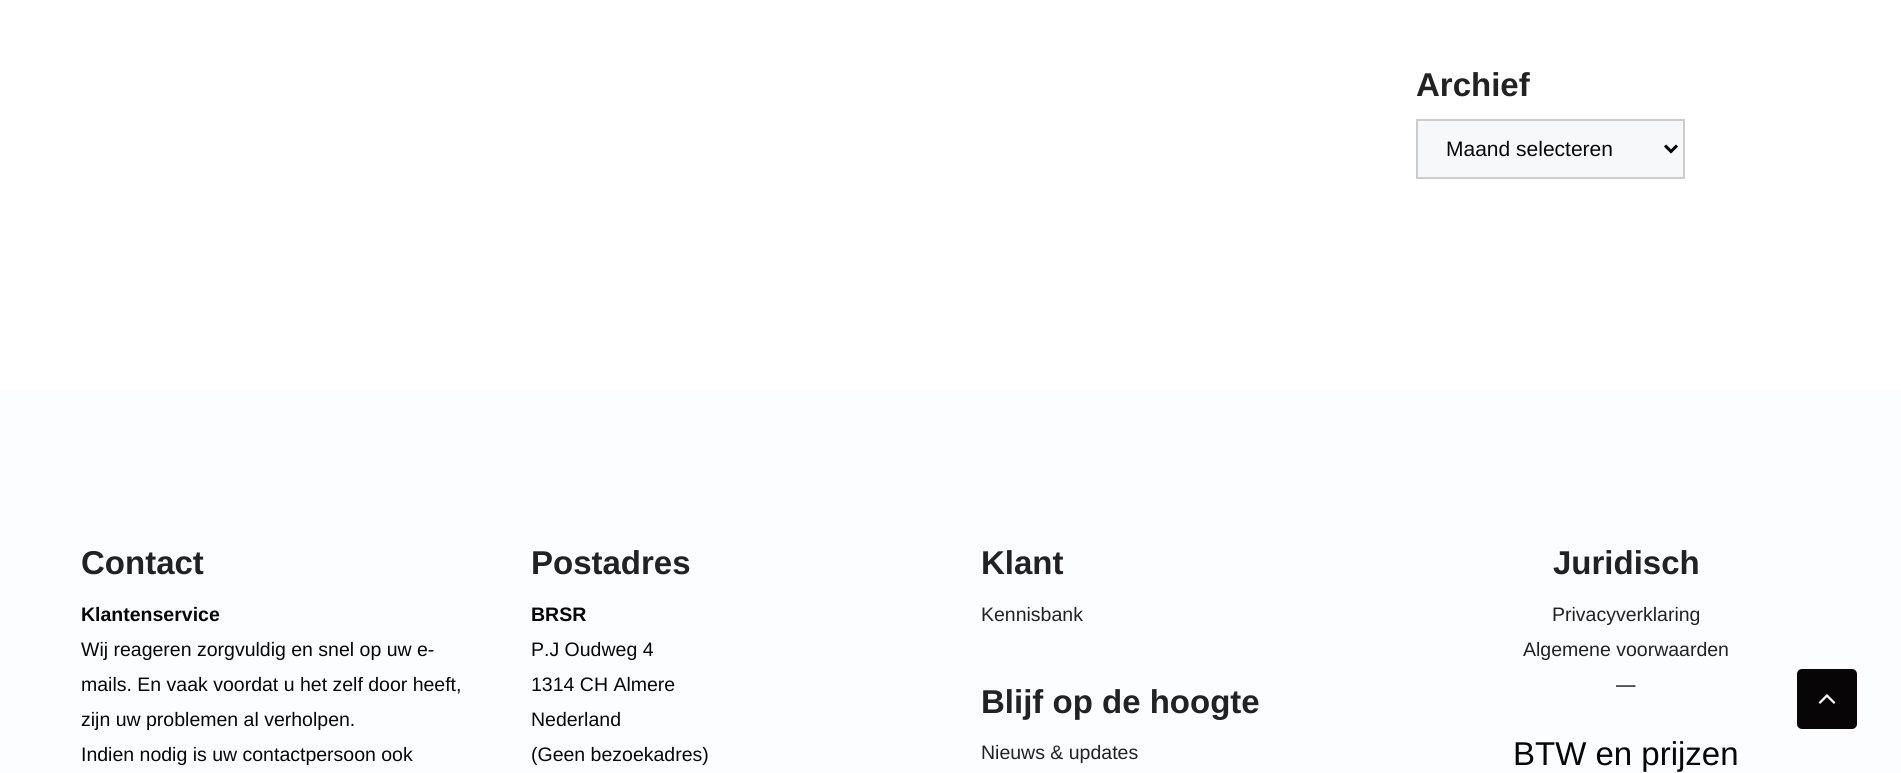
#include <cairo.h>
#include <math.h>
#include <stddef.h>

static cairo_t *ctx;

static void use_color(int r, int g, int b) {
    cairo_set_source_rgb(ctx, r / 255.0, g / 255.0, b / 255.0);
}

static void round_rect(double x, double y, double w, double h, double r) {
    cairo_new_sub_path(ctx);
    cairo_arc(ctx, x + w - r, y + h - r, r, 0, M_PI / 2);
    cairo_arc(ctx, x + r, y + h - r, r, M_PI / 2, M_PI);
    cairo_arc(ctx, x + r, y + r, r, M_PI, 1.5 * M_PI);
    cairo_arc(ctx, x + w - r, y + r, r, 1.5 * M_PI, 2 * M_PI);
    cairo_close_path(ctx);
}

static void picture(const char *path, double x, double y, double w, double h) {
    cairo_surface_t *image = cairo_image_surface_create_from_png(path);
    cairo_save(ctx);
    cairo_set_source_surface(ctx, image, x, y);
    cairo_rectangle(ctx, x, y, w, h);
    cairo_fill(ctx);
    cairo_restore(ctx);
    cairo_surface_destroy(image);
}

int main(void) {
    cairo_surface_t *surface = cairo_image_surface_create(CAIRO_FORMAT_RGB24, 1901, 773);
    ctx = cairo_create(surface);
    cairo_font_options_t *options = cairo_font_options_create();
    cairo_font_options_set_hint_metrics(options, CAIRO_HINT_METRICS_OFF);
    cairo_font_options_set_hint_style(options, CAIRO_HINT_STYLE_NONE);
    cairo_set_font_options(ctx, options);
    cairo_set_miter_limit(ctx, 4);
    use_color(255, 255, 255);
    cairo_paint(ctx);
    cairo_select_font_face(ctx, "Liberation Sans", CAIRO_FONT_SLANT_NORMAL, CAIRO_FONT_WEIGHT_BOLD);
    cairo_set_font_size(ctx, 33);
    use_color(34, 34, 34);
    cairo_move_to(ctx, 1416, 96);
    cairo_show_text(ctx, "Archief");
    use_color(247, 248, 249);
    cairo_rectangle(ctx, 1417, 120, 267, 58);
    cairo_fill_preserve(ctx);
    use_color(204, 204, 204);
    cairo_stroke(ctx);
    cairo_new_path(ctx);
    cairo_move_to(ctx, 1665, 145.5);
    cairo_line_to(ctx, 1671, 151.5);
    cairo_line_to(ctx, 1677, 145.5);
    use_color(7, 7, 7);
    cairo_set_line_width(ctx, 3);
    cairo_stroke(ctx);
    cairo_select_font_face(ctx, "Liberation Sans", CAIRO_FONT_SLANT_NORMAL, CAIRO_FONT_WEIGHT_NORMAL);
    cairo_set_font_size(ctx, 21);
    cairo_move_to(ctx, 1446, 156);
    cairo_show_text(ctx, "Maand selecteren");
    use_color(252, 253, 255);
    cairo_rectangle(ctx, 0, 389, 1901, 384);
    cairo_fill(ctx);
    cairo_select_font_face(ctx, "Liberation Sans", CAIRO_FONT_SLANT_NORMAL, CAIRO_FONT_WEIGHT_BOLD);
    cairo_set_font_size(ctx, 33);
    use_color(34, 34, 34);
    cairo_move_to(ctx, 81, 574);
    cairo_show_text(ctx, "Contact");
    cairo_set_font_size(ctx, 19.5);
    use_color(7, 7, 7);
    cairo_move_to(ctx, 81, 621);
    cairo_show_text(ctx, "Klantenservice");
    cairo_select_font_face(ctx, "Liberation Sans", CAIRO_FONT_SLANT_NORMAL, CAIRO_FONT_WEIGHT_NORMAL);
    cairo_move_to(ctx, 81, 656);
    cairo_show_text(ctx, "Wij reageren zorgvuldig en snel op uw e-");
    cairo_move_to(ctx, 81, 691);
    cairo_show_text(ctx, "mails. En vaak voordat u het zelf door heeft,");
    cairo_move_to(ctx, 81, 726);
    cairo_show_text(ctx, "zijn uw problemen al verholpen.");
    cairo_move_to(ctx, 81, 761);
    cairo_show_text(ctx, "Indien nodig is uw contactpersoon ook");
    cairo_select_font_face(ctx, "Liberation Sans", CAIRO_FONT_SLANT_NORMAL, CAIRO_FONT_WEIGHT_BOLD);
    cairo_set_font_size(ctx, 33);
    use_color(34, 34, 34);
    cairo_move_to(ctx, 531, 574);
    cairo_show_text(ctx, "Postadres");
    cairo_set_font_size(ctx, 19.5);
    use_color(7, 7, 7);
    cairo_move_to(ctx, 531, 621);
    cairo_show_text(ctx, "BRSR");
    cairo_select_font_face(ctx, "Liberation Sans", CAIRO_FONT_SLANT_NORMAL, CAIRO_FONT_WEIGHT_NORMAL);
    cairo_move_to(ctx, 531, 656);
    cairo_show_text(ctx, "P.J Oudweg 4");
    cairo_move_to(ctx, 531, 691);
    cairo_show_text(ctx, "1314 CH Almere");
    cairo_move_to(ctx, 531, 726);
    cairo_show_text(ctx, "Nederland");
    cairo_move_to(ctx, 531, 761);
    cairo_show_text(ctx, "(Geen bezoekadres)");
    cairo_select_font_face(ctx, "Liberation Sans", CAIRO_FONT_SLANT_NORMAL, CAIRO_FONT_WEIGHT_BOLD);
    cairo_set_font_size(ctx, 33);
    use_color(34, 34, 34);
    cairo_move_to(ctx, 981, 574);
    cairo_show_text(ctx, "Klant");
    cairo_select_font_face(ctx, "Liberation Sans", CAIRO_FONT_SLANT_NORMAL, CAIRO_FONT_WEIGHT_NORMAL);
    cairo_set_font_size(ctx, 19.5);
    cairo_move_to(ctx, 981, 621);
    cairo_show_text(ctx, "Kennisbank");
    cairo_select_font_face(ctx, "Liberation Sans", CAIRO_FONT_SLANT_NORMAL, CAIRO_FONT_WEIGHT_BOLD);
    cairo_set_font_size(ctx, 33);
    cairo_move_to(ctx, 981, 713);
    cairo_show_text(ctx, "Blijf op de hoogte");
    cairo_select_font_face(ctx, "Liberation Sans", CAIRO_FONT_SLANT_NORMAL, CAIRO_FONT_WEIGHT_NORMAL);
    cairo_set_font_size(ctx, 19.5);
    cairo_move_to(ctx, 981, 759);
    cairo_show_text(ctx, "Nieuws & updates");
    cairo_select_font_face(ctx, "Liberation Sans", CAIRO_FONT_SLANT_NORMAL, CAIRO_FONT_WEIGHT_BOLD);
    cairo_set_font_size(ctx, 33);
    cairo_move_to(ctx, 1553, 574);
    cairo_show_text(ctx, "Juridisch");
    cairo_select_font_face(ctx, "Liberation Sans", CAIRO_FONT_SLANT_NORMAL, CAIRO_FONT_WEIGHT_NORMAL);
    cairo_set_font_size(ctx, 19.5);
    cairo_move_to(ctx, 1552, 621);
    cairo_show_text(ctx, "Privacyverklaring");
    cairo_move_to(ctx, 1523, 656);
    cairo_show_text(ctx, "Algemene voorwaarden");
    use_color(7, 7, 7);
    cairo_move_to(ctx, 1616, 691);
    cairo_show_text(ctx, "—");
    cairo_set_font_size(ctx, 33);
    cairo_move_to(ctx, 1513, 765);
    cairo_show_text(ctx, "BTW en prijzen");
    use_color(7, 5, 5);
    round_rect(1797, 669, 60, 60, 5);
    cairo_fill(ctx);
    picture("img1.png", 1818, 694, 18, 10);
    cairo_surface_write_to_png(surface, "result.png");
    cairo_font_options_destroy(options);
    cairo_destroy(ctx);
    cairo_surface_destroy(surface);
    return 0;
}
